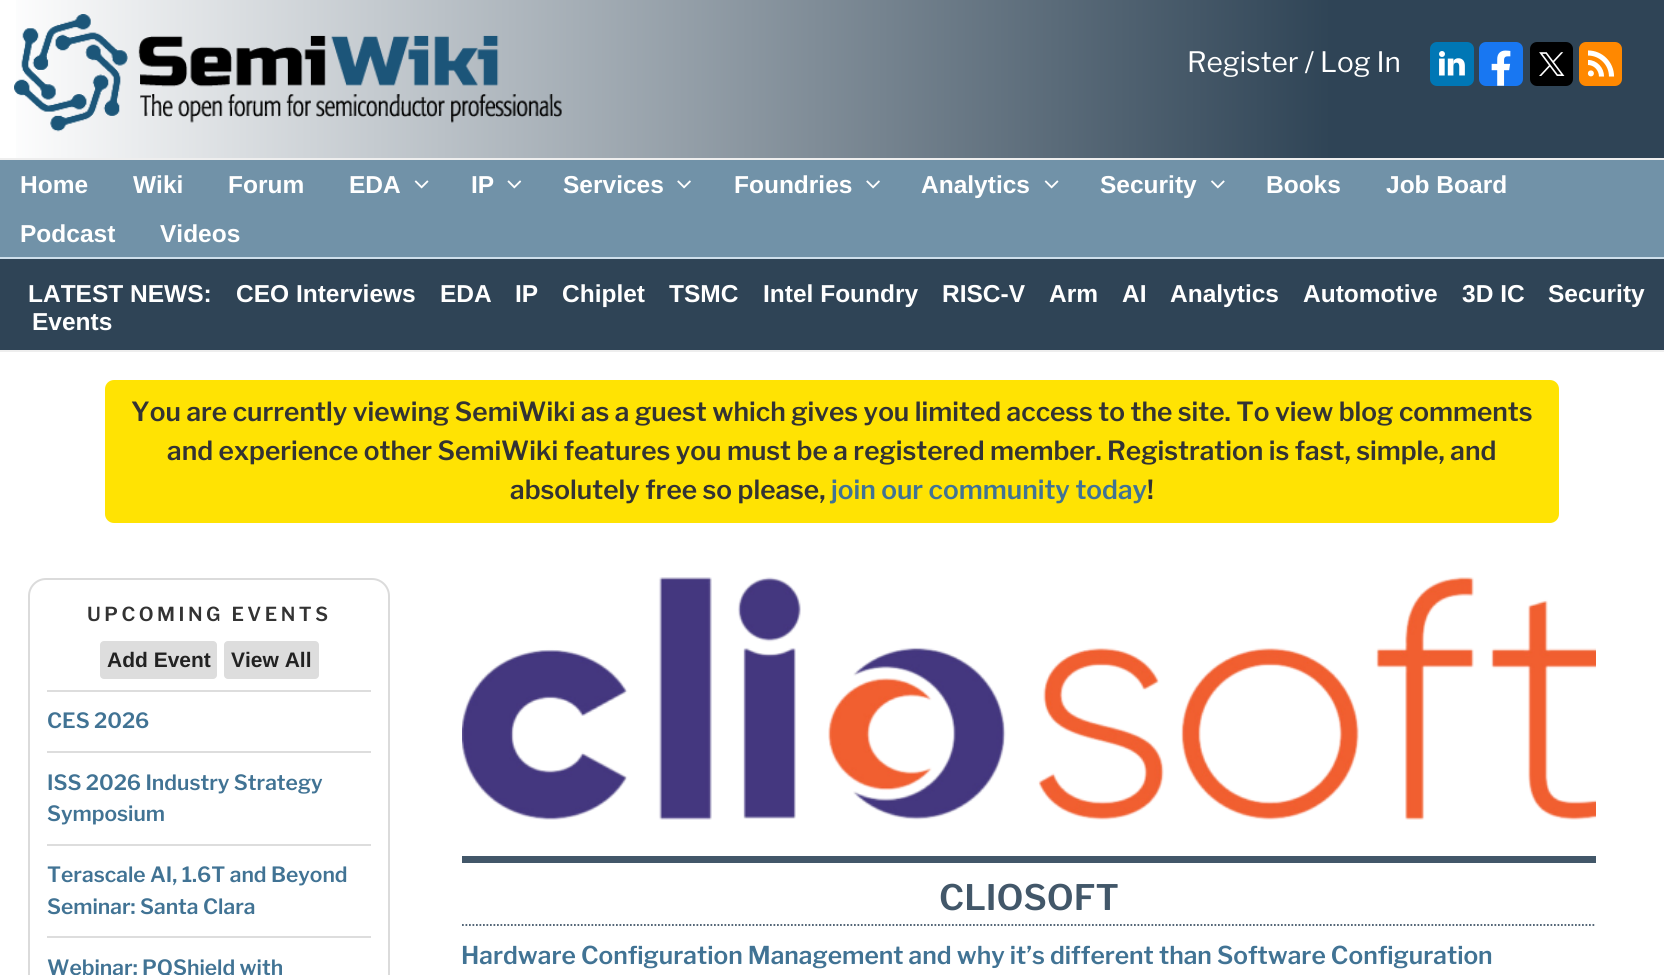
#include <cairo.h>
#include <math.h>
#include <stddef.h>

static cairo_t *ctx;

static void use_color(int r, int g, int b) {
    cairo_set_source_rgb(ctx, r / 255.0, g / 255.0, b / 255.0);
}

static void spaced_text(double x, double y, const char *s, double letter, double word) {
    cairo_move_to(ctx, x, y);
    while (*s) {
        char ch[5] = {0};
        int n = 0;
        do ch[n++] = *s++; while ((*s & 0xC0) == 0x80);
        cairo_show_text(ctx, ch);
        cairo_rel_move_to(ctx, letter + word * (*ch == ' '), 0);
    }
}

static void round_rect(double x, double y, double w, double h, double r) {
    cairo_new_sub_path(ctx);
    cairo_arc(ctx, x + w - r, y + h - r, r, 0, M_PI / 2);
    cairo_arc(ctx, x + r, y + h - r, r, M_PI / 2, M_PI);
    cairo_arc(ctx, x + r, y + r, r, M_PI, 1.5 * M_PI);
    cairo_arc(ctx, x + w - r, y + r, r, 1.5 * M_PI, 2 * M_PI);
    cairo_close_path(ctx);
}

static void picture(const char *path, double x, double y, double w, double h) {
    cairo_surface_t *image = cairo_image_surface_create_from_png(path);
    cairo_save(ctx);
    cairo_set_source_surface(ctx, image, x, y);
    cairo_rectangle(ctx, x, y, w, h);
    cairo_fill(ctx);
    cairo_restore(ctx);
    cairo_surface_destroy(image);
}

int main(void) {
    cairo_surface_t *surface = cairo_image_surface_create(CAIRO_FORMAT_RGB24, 1664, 975);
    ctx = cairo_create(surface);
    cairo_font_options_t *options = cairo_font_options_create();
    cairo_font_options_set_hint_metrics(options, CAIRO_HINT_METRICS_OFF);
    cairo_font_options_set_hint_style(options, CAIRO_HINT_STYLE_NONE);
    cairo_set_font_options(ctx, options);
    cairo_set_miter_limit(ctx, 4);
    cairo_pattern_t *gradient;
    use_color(255, 255, 255);
    cairo_paint(ctx);
    gradient = cairo_pattern_create_linear(0, 79, 1664, 79);
    cairo_pattern_add_color_stop_rgba(gradient, 0, 1, 1, 1, 1);
    cairo_pattern_add_color_stop_rgba(gradient, 0.8, 0.184, 0.267, 0.337, 1);
    cairo_set_source(ctx, gradient);
    cairo_pattern_destroy(gradient);
    cairo_rectangle(ctx, 16, 0, 1648, 158);
    cairo_fill(ctx);
    picture("img1.png", 14, 14, 548, 118);
    cairo_select_font_face(ctx, "Libre Franklin", CAIRO_FONT_SLANT_NORMAL, CAIRO_FONT_WEIGHT_NORMAL);
    cairo_set_font_size(ctx, 28);
    use_color(255, 255, 255);
    cairo_move_to(ctx, 1187, 72);
    cairo_show_text(ctx, "Register / Log In");
    picture("img2.png", 1430, 42, 44, 44);
    picture("img3.png", 1479, 42, 44, 44);
    picture("img4.png", 1530, 42, 43, 44);
    use_color(255, 136, 0);
    round_rect(1579, 42, 43, 44, 7);
    cairo_fill(ctx);
    use_color(255, 255, 255);
    cairo_arc(ctx, 1590.9, 73.4, 3, 0, 2 * M_PI);
    cairo_fill(ctx);
    cairo_new_path(ctx);
    cairo_move_to(ctx, 1588, 62.5);
    cairo_curve_to(ctx, 1595.5, 62.5, 1601.5, 69, 1601.5, 76.5);
    cairo_move_to(ctx, 1611.5, 76.5);
    cairo_curve_to(ctx, 1611.5, 63.5, 1601, 53, 1588, 53);
    cairo_set_line_width(ctx, 5.1);
    cairo_stroke(ctx);
    use_color(113, 146, 168);
    cairo_rectangle(ctx, 0, 160, 1664, 97);
    cairo_fill(ctx);
    use_color(238, 238, 238);
    cairo_rectangle(ctx, 0, 158, 1664, 2);
    cairo_fill(ctx);
    cairo_rectangle(ctx, 0, 350, 1664, 2);
    cairo_fill(ctx);
    cairo_select_font_face(ctx, "Liberation Sans", CAIRO_FONT_SLANT_NORMAL, CAIRO_FONT_WEIGHT_BOLD);
    cairo_set_font_size(ctx, 24.5);
    use_color(255, 255, 255);
    cairo_move_to(ctx, 20, 193);
    cairo_show_text(ctx, "Home");
    cairo_move_to(ctx, 133, 193);
    cairo_show_text(ctx, "Wiki");
    cairo_move_to(ctx, 228, 193);
    cairo_show_text(ctx, "Forum");
    cairo_move_to(ctx, 349, 193);
    cairo_show_text(ctx, "EDA");
    picture("img5.png", 414, 180, 15, 9);
    cairo_move_to(ctx, 471, 193);
    cairo_show_text(ctx, "IP");
    picture("img6.png", 507, 180, 15, 9);
    cairo_move_to(ctx, 563, 193);
    cairo_show_text(ctx, "Services");
    picture("img7.png", 677, 180, 14, 9);
    cairo_move_to(ctx, 734, 193);
    cairo_show_text(ctx, "Foundries");
    picture("img7.png", 866, 180, 14, 9);
    cairo_move_to(ctx, 921, 193);
    cairo_show_text(ctx, "Analytics");
    picture("img5.png", 1044, 180, 15, 9);
    cairo_move_to(ctx, 1100, 193);
    cairo_show_text(ctx, "Security");
    picture("img8.png", 1211, 180, 14, 9);
    cairo_move_to(ctx, 1266, 193);
    cairo_show_text(ctx, "Books");
    cairo_move_to(ctx, 1386, 193);
    cairo_show_text(ctx, "Job Board");
    cairo_move_to(ctx, 20, 242);
    cairo_show_text(ctx, "Podcast");
    cairo_move_to(ctx, 160, 242);
    cairo_show_text(ctx, "Videos");
    use_color(47, 68, 86);
    cairo_rectangle(ctx, 0, 259, 1664, 91);
    cairo_fill(ctx);
    use_color(206, 223, 235);
    cairo_rectangle(ctx, 0, 257, 1664, 2);
    cairo_fill(ctx);
    use_color(255, 255, 255);
    cairo_move_to(ctx, 28, 302);
    cairo_show_text(ctx, "LATEST NEWS:");
    cairo_move_to(ctx, 236, 302);
    cairo_show_text(ctx, "CEO Interviews");
    cairo_move_to(ctx, 440, 302);
    cairo_show_text(ctx, "EDA");
    cairo_move_to(ctx, 515, 302);
    cairo_show_text(ctx, "IP");
    cairo_move_to(ctx, 562, 302);
    cairo_show_text(ctx, "Chiplet");
    cairo_move_to(ctx, 669, 302);
    cairo_show_text(ctx, "TSMC");
    cairo_move_to(ctx, 763, 302);
    cairo_show_text(ctx, "Intel Foundry");
    cairo_move_to(ctx, 942, 302);
    cairo_show_text(ctx, "RISC-V");
    cairo_move_to(ctx, 1049, 302);
    cairo_show_text(ctx, "Arm");
    cairo_move_to(ctx, 1122, 302);
    cairo_show_text(ctx, "AI");
    cairo_move_to(ctx, 1170, 302);
    cairo_show_text(ctx, "Analytics");
    cairo_move_to(ctx, 1303, 302);
    cairo_show_text(ctx, "Automotive");
    cairo_move_to(ctx, 1462, 302);
    cairo_show_text(ctx, "3D IC");
    cairo_move_to(ctx, 1548, 302);
    cairo_show_text(ctx, "Security");
    cairo_move_to(ctx, 32, 330);
    cairo_show_text(ctx, "Events");
    use_color(255, 227, 3);
    round_rect(105, 380, 1454, 143, 9);
    cairo_fill(ctx);
    cairo_select_font_face(ctx, "Libre Franklin SemiBold", CAIRO_FONT_SLANT_NORMAL, CAIRO_FONT_WEIGHT_NORMAL);
    cairo_set_font_size(ctx, 26.25);
    use_color(51, 51, 51);
    cairo_move_to(ctx, 131, 421);
    cairo_show_text(ctx, "You are currently viewing SemiWiki as a guest which gives you limited access to the site. To view blog comments");
    cairo_move_to(ctx, 167, 460);
    cairo_show_text(ctx, "and experience other SemiWiki features you must be a registered member. Registration is fast, simple, and");
    cairo_move_to(ctx, 510, 499);
    cairo_show_text(ctx, "absolutely free so please,");
    use_color(65, 115, 148);
    cairo_move_to(ctx, 831, 499);
    cairo_show_text(ctx, "join our community today");
    use_color(51, 51, 51);
    cairo_move_to(ctx, 1147, 499);
    cairo_show_text(ctx, "!");
    round_rect(29, 579, 360, 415, 17);
    use_color(219, 219, 219);
    cairo_set_line_width(ctx, 2);
    cairo_stroke(ctx);
    cairo_set_font_size(ctx, 19.25);
    use_color(51, 51, 51);
    spaced_text(87, 621, "UPCOMING EVENTS", 3.5, 0);
    use_color(221, 221, 221);
    round_rect(100, 641, 117, 38, 4);
    cairo_fill(ctx);
    cairo_select_font_face(ctx, "Liberation Sans", CAIRO_FONT_SLANT_NORMAL, CAIRO_FONT_WEIGHT_BOLD);
    cairo_set_font_size(ctx, 21);
    use_color(34, 34, 34);
    cairo_move_to(ctx, 107, 667);
    cairo_show_text(ctx, "Add Event");
    use_color(221, 221, 221);
    round_rect(224, 641, 95, 38, 4);
    cairo_fill(ctx);
    use_color(34, 34, 34);
    cairo_move_to(ctx, 231, 667);
    cairo_show_text(ctx, "View All");
    use_color(221, 221, 221);
    cairo_rectangle(ctx, 47, 690, 324, 2);
    cairo_fill(ctx);
    cairo_select_font_face(ctx, "Libre Franklin SemiBold", CAIRO_FONT_SLANT_NORMAL, CAIRO_FONT_WEIGHT_NORMAL);
    use_color(65, 115, 148);
    cairo_move_to(ctx, 47, 728);
    cairo_show_text(ctx, "CES 2026");
    use_color(221, 221, 221);
    cairo_rectangle(ctx, 47, 751, 324, 2);
    cairo_fill(ctx);
    use_color(65, 115, 148);
    cairo_move_to(ctx, 47, 790);
    cairo_show_text(ctx, "ISS 2026 Industry Strategy");
    cairo_move_to(ctx, 47, 821);
    cairo_show_text(ctx, "Symposium");
    use_color(221, 221, 221);
    cairo_rectangle(ctx, 47, 844, 324, 2);
    cairo_fill(ctx);
    use_color(65, 115, 148);
    cairo_move_to(ctx, 47, 882);
    cairo_show_text(ctx, "Terascale AI, 1.6T and Beyond");
    cairo_move_to(ctx, 47, 914);
    cairo_show_text(ctx, "Seminar: Santa Clara");
    use_color(221, 221, 221);
    cairo_rectangle(ctx, 47, 936, 324, 2);
    cairo_fill(ctx);
    use_color(65, 115, 148);
    cairo_move_to(ctx, 47, 975);
    cairo_show_text(ctx, "Webinar: PQShield with");
    picture("img9.png", 462, 577, 1134, 243);
    use_color(66, 87, 105);
    cairo_rectangle(ctx, 462, 856, 1134, 7);
    cairo_fill(ctx);
    cairo_new_path(ctx);
    cairo_move_to(ctx, 462, 925);
    cairo_line_to(ctx, 1596, 925);
    cairo_set_line_width(ctx, 1.8);
    cairo_set_dash(ctx, (double[]){1.75, 1.75}, 2, 0);
    cairo_stroke(ctx);
    cairo_set_font_size(ctx, 35);
    cairo_move_to(ctx, 939, 910);
    cairo_show_text(ctx, "CLIOSOFT");
    cairo_set_font_size(ctx, 24.5);
    use_color(65, 115, 148);
    cairo_move_to(ctx, 461, 964);
    cairo_show_text(ctx, "Hardware Configuration Management and why it’s different than Software Configuration");
    cairo_surface_write_to_png(surface, "result.png");
    cairo_font_options_destroy(options);
    cairo_destroy(ctx);
    cairo_surface_destroy(surface);
    return 0;
}
